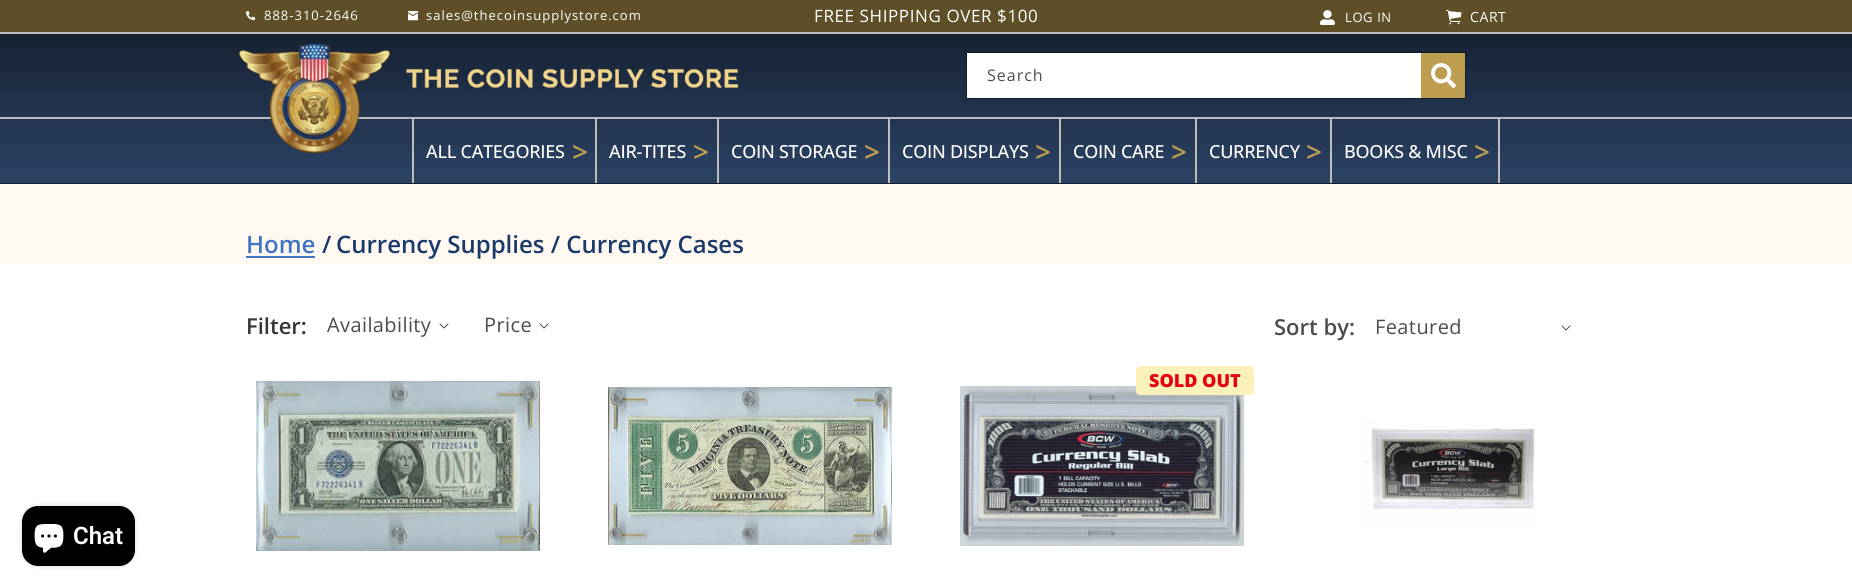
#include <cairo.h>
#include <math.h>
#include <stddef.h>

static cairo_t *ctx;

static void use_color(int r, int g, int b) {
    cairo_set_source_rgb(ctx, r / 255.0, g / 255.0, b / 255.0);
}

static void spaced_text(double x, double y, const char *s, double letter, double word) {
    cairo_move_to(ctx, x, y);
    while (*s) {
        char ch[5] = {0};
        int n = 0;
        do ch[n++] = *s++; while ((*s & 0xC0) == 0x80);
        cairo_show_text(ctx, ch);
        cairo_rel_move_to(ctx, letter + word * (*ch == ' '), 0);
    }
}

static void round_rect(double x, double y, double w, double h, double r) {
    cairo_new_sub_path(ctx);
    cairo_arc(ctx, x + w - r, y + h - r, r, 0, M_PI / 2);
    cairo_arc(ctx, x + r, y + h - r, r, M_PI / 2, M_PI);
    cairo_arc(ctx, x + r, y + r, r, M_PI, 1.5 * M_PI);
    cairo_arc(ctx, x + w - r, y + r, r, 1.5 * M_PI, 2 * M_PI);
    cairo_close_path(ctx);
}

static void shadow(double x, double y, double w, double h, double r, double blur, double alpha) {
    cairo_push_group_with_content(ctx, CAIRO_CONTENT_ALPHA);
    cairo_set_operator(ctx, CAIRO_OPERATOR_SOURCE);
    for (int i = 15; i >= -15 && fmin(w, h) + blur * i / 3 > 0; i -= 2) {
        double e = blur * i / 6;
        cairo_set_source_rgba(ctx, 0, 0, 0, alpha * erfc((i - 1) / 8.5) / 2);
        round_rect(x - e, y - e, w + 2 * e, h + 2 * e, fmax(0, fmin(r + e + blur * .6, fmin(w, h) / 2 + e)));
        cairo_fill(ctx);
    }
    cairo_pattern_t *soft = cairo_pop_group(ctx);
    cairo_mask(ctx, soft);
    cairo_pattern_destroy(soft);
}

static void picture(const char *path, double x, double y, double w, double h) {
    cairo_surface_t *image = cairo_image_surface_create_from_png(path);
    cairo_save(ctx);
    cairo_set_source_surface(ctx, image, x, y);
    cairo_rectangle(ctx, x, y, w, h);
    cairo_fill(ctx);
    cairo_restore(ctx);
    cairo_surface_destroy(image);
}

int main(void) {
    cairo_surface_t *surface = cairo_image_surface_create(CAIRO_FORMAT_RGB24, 1852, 587);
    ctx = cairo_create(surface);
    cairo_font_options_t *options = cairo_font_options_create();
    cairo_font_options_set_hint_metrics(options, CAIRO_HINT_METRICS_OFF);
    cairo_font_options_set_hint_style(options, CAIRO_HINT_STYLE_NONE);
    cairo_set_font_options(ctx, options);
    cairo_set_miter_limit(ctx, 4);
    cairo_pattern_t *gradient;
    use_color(255, 255, 255);
    cairo_paint(ctx);
    use_color(95, 79, 40);
    cairo_rectangle(ctx, 0, 0, 1852, 32);
    cairo_fill(ctx);
    picture("img1.png", 246, 11, 10, 10);
    cairo_select_font_face(ctx, "Open Sans", CAIRO_FONT_SLANT_NORMAL, CAIRO_FONT_WEIGHT_NORMAL);
    cairo_set_font_size(ctx, 13);
    use_color(255, 255, 255);
    spaced_text(264, 20, "888-310-2646", 1, 0);
    picture("img2.png", 408, 11, 10, 10);
    spaced_text(426, 20, "sales@thecoinsupplystore.com", 1, 0);
    cairo_set_font_size(ctx, 17);
    spaced_text(814, 22, "FREE SHIPPING OVER $100", 0.6, 0);
    picture("img3.png", 1320, 10, 15, 15);
    cairo_set_font_size(ctx, 13);
    spaced_text(1345, 22, "LOG IN", 0.6, 0);
    picture("img4.png", 1446, 10, 16, 15);
    cairo_set_font_size(ctx, 14);
    spaced_text(1470, 22, "CART", 0.6, 0);
    gradient = cairo_pattern_create_linear(926, 32, 926, 183);
    cairo_pattern_add_color_stop_rgba(gradient, 0, 0.086, 0.133, 0.2, 1);
    cairo_pattern_add_color_stop_rgba(gradient, 1, 0.173, 0.263, 0.396, 1);
    cairo_set_source(ctx, gradient);
    cairo_pattern_destroy(gradient);
    cairo_rectangle(ctx, 0, 34, 1852, 149);
    cairo_fill(ctx);
    use_color(22, 33, 48);
    cairo_rectangle(ctx, 0, 183, 1852, 1);
    cairo_fill(ctx);
    use_color(190, 190, 190);
    cairo_rectangle(ctx, 0, 32, 1852, 2);
    cairo_fill(ctx);
    cairo_rectangle(ctx, 0, 117, 1852, 2);
    cairo_fill(ctx);
    picture("img5.png", 239, 44, 500, 109);
    use_color(255, 255, 255);
    cairo_rectangle(ctx, 967, 53, 454, 45);
    cairo_fill(ctx);
    use_color(189, 157, 80);
    cairo_rectangle(ctx, 1421, 53, 44, 45);
    cairo_fill(ctx);
    picture("img6.png", 1431, 63, 25, 25);
    cairo_rectangle(ctx, 966.5, 52.5, 499, 46);
    cairo_set_source_rgba(ctx, 0.071, 0.071, 0.071, 0.55);
    cairo_set_line_width(ctx, 1);
    cairo_stroke(ctx);
    cairo_set_font_size(ctx, 16);
    use_color(77, 77, 77);
    spaced_text(987, 81, "Search", 1, 0);
    use_color(190, 190, 190);
    cairo_rectangle(ctx, 595, 119, 2, 64);
    cairo_fill(ctx);
    cairo_rectangle(ctx, 412, 119, 2, 64);
    cairo_fill(ctx);
    cairo_select_font_face(ctx, "Open Sans Medium", CAIRO_FONT_SLANT_NORMAL, CAIRO_FONT_WEIGHT_NORMAL);
    cairo_set_font_size(ctx, 18);
    use_color(255, 255, 255);
    spaced_text(426, 158, "ALL CATEGORIES", -0.25, 0);
    cairo_select_font_face(ctx, "Open Sans SemiBold", CAIRO_FONT_SLANT_NORMAL, CAIRO_FONT_WEIGHT_NORMAL);
    cairo_set_font_size(ctx, 28);
    use_color(189, 157, 80);
    spaced_text(572, 162, ">", -0.25, 0);
    use_color(190, 190, 190);
    cairo_rectangle(ctx, 717, 119, 2, 64);
    cairo_fill(ctx);
    cairo_select_font_face(ctx, "Open Sans Medium", CAIRO_FONT_SLANT_NORMAL, CAIRO_FONT_WEIGHT_NORMAL);
    cairo_set_font_size(ctx, 18);
    use_color(255, 255, 255);
    spaced_text(609, 158, "AIR-TITES", -0.25, 0);
    cairo_select_font_face(ctx, "Open Sans SemiBold", CAIRO_FONT_SLANT_NORMAL, CAIRO_FONT_WEIGHT_NORMAL);
    cairo_set_font_size(ctx, 28);
    use_color(189, 157, 80);
    spaced_text(693, 162, ">", -0.25, 0);
    use_color(190, 190, 190);
    cairo_rectangle(ctx, 888, 119, 2, 64);
    cairo_fill(ctx);
    cairo_select_font_face(ctx, "Open Sans Medium", CAIRO_FONT_SLANT_NORMAL, CAIRO_FONT_WEIGHT_NORMAL);
    cairo_set_font_size(ctx, 18);
    use_color(255, 255, 255);
    spaced_text(731, 158, "COIN STORAGE", -0.25, 0);
    cairo_select_font_face(ctx, "Open Sans SemiBold", CAIRO_FONT_SLANT_NORMAL, CAIRO_FONT_WEIGHT_NORMAL);
    cairo_set_font_size(ctx, 28);
    use_color(189, 157, 80);
    spaced_text(864, 162, ">", -0.25, 0);
    use_color(190, 190, 190);
    cairo_rectangle(ctx, 1059, 119, 2, 64);
    cairo_fill(ctx);
    cairo_select_font_face(ctx, "Open Sans Medium", CAIRO_FONT_SLANT_NORMAL, CAIRO_FONT_WEIGHT_NORMAL);
    cairo_set_font_size(ctx, 18);
    use_color(255, 255, 255);
    spaced_text(902, 158, "COIN DISPLAYS", -0.25, 0);
    cairo_select_font_face(ctx, "Open Sans SemiBold", CAIRO_FONT_SLANT_NORMAL, CAIRO_FONT_WEIGHT_NORMAL);
    cairo_set_font_size(ctx, 28);
    use_color(189, 157, 80);
    spaced_text(1035, 162, ">", -0.25, 0);
    use_color(190, 190, 190);
    cairo_rectangle(ctx, 1195, 119, 2, 64);
    cairo_fill(ctx);
    cairo_select_font_face(ctx, "Open Sans Medium", CAIRO_FONT_SLANT_NORMAL, CAIRO_FONT_WEIGHT_NORMAL);
    cairo_set_font_size(ctx, 18);
    use_color(255, 255, 255);
    spaced_text(1073, 158, "COIN CARE", -0.25, 0);
    cairo_select_font_face(ctx, "Open Sans SemiBold", CAIRO_FONT_SLANT_NORMAL, CAIRO_FONT_WEIGHT_NORMAL);
    cairo_set_font_size(ctx, 28);
    use_color(189, 157, 80);
    spaced_text(1171, 162, ">", -0.25, 0);
    use_color(190, 190, 190);
    cairo_rectangle(ctx, 1330, 119, 2, 64);
    cairo_fill(ctx);
    cairo_select_font_face(ctx, "Open Sans Medium", CAIRO_FONT_SLANT_NORMAL, CAIRO_FONT_WEIGHT_NORMAL);
    cairo_set_font_size(ctx, 18);
    use_color(255, 255, 255);
    spaced_text(1209, 158, "CURRENCY", -0.25, 0);
    cairo_select_font_face(ctx, "Open Sans SemiBold", CAIRO_FONT_SLANT_NORMAL, CAIRO_FONT_WEIGHT_NORMAL);
    cairo_set_font_size(ctx, 28);
    use_color(189, 157, 80);
    spaced_text(1306, 162, ">", -0.25, 0);
    use_color(190, 190, 190);
    cairo_rectangle(ctx, 1498, 119, 2, 64);
    cairo_fill(ctx);
    cairo_select_font_face(ctx, "Open Sans Medium", CAIRO_FONT_SLANT_NORMAL, CAIRO_FONT_WEIGHT_NORMAL);
    cairo_set_font_size(ctx, 18);
    use_color(255, 255, 255);
    spaced_text(1344, 158, "BOOKS & MISC", -0.25, 0);
    cairo_select_font_face(ctx, "Open Sans SemiBold", CAIRO_FONT_SLANT_NORMAL, CAIRO_FONT_WEIGHT_NORMAL);
    cairo_set_font_size(ctx, 28);
    use_color(189, 157, 80);
    spaced_text(1474, 162, ">", -0.25, 0);
    use_color(255, 249, 241);
    cairo_rectangle(ctx, 0, 184, 1852, 80);
    cairo_fill(ctx);
    cairo_set_font_size(ctx, 24);
    use_color(65, 117, 193);
    cairo_move_to(ctx, 246, 253);
    cairo_show_text(ctx, "Home");
    cairo_rectangle(ctx, 246, 256, 69, 2);
    cairo_fill(ctx);
    use_color(26, 58, 105);
    cairo_move_to(ctx, 322, 253);
    cairo_show_text(ctx, "/");
    cairo_move_to(ctx, 336, 253);
    cairo_show_text(ctx, "Currency Supplies / Currency Cases");
    cairo_set_font_size(ctx, 22);
    use_color(54, 54, 54);
    cairo_move_to(ctx, 246, 334);
    cairo_show_text(ctx, "Filter:");
    cairo_select_font_face(ctx, "Open Sans", CAIRO_FONT_SLANT_NORMAL, CAIRO_FONT_WEIGHT_NORMAL);
    cairo_set_font_size(ctx, 20);
    use_color(77, 77, 77);
    spaced_text(327, 332, "Availability", 0.4, 0);
    picture("img7.png", 439, 323, 10, 6);
    spaced_text(484, 332, "Price", 0.4, 0);
    picture("img7.png", 539, 323, 10, 6);
    cairo_select_font_face(ctx, "Open Sans SemiBold", CAIRO_FONT_SLANT_NORMAL, CAIRO_FONT_WEIGHT_NORMAL);
    cairo_set_font_size(ctx, 22);
    cairo_move_to(ctx, 1274, 335);
    cairo_show_text(ctx, "Sort by:");
    cairo_select_font_face(ctx, "Open Sans", CAIRO_FONT_SLANT_NORMAL, CAIRO_FONT_WEIGHT_NORMAL);
    cairo_set_font_size(ctx, 20);
    spaced_text(1375, 334, "Featured", 0.4, 0);
    picture("img7.png", 1561, 325, 10, 6);
    picture("img8.png", 256, 381, 284, 170);
    picture("img9.png", 608, 387, 284, 158);
    picture("img10.png", 960, 386, 284, 160);
    use_color(252, 240, 187);
    round_rect(1136, 366, 118, 29, 4);
    cairo_fill(ctx);
    cairo_select_font_face(ctx, "Open Sans ExtraBold", CAIRO_FONT_SLANT_NORMAL, CAIRO_FONT_WEIGHT_NORMAL);
    cairo_set_font_size(ctx, 18);
    use_color(229, 0, 15);
    cairo_move_to(ctx, 1149, 387);
    cairo_show_text(ctx, "SOLD OUT");
    picture("img11.png", 1364, 420, 172, 106);
    use_color(0, 0, 0);
    shadow(22, 506, 113, 60, 16, 2.5, 0.15);
    use_color(0, 0, 0);
    round_rect(22, 506, 113, 60, 16);
    cairo_fill(ctx);
    picture("img12.png", 34, 524, 30, 29);
    cairo_select_font_face(ctx, "Roboto SemiBold", CAIRO_FONT_SLANT_NORMAL, CAIRO_FONT_WEIGHT_NORMAL);
    cairo_set_font_size(ctx, 24);
    use_color(255, 255, 255);
    cairo_move_to(ctx, 73, 544);
    cairo_show_text(ctx, "Chat");
    cairo_surface_write_to_png(surface, "result.png");
    cairo_font_options_destroy(options);
    cairo_destroy(ctx);
    cairo_surface_destroy(surface);
    return 0;
}
